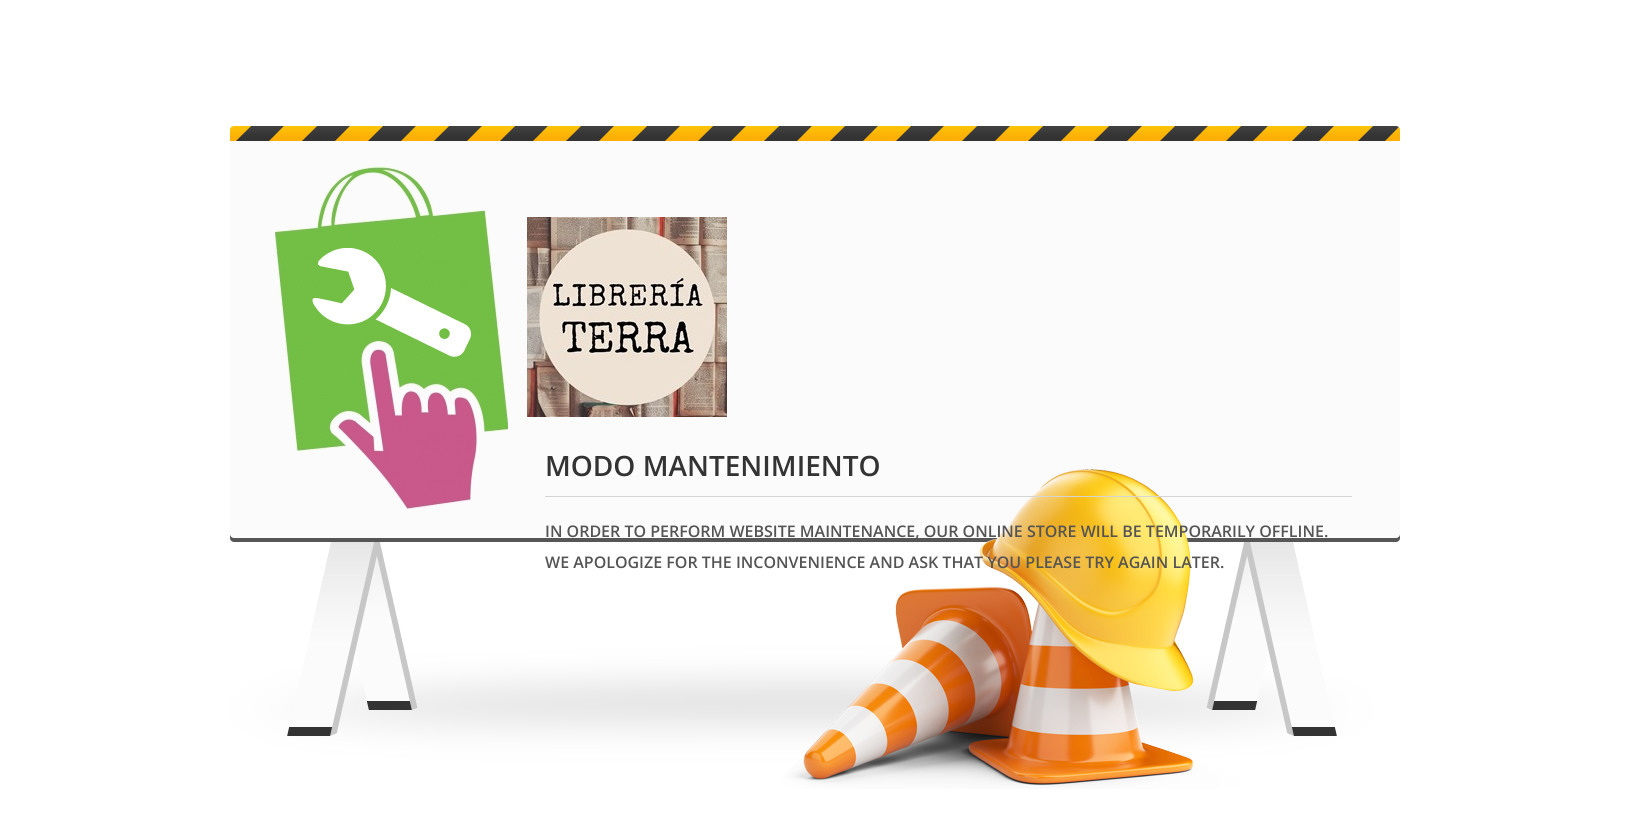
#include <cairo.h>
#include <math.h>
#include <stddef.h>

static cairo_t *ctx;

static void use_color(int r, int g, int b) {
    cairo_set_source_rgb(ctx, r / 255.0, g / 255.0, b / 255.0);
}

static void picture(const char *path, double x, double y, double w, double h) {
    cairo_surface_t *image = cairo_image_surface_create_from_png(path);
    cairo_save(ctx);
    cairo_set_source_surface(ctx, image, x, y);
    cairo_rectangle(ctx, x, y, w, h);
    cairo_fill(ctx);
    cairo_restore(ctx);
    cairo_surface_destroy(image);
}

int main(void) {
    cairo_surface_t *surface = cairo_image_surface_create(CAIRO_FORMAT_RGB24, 1630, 823);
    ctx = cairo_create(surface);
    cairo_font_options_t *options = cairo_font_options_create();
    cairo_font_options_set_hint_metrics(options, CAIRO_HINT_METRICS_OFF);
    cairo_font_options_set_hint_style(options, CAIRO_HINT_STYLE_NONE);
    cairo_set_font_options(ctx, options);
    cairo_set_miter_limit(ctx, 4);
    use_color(255, 255, 255);
    cairo_paint(ctx);
    picture("img1.png", 230, 126, 1170, 663);
    picture("img2.png", 527, 217, 200, 200);
    use_color(214, 212, 212);
    cairo_rectangle(ctx, 545, 496, 807, 1);
    cairo_fill(ctx);
    cairo_select_font_face(ctx, "Open Sans SemiBold", CAIRO_FONT_SLANT_NORMAL, CAIRO_FONT_WEIGHT_NORMAL);
    cairo_set_font_size(ctx, 28);
    use_color(51, 51, 51);
    cairo_move_to(ctx, 545, 476);
    cairo_show_text(ctx, "MODO MANTENIMIENTO");
    cairo_set_font_size(ctx, 16);
    use_color(85, 84, 84);
    cairo_move_to(ctx, 545, 537);
    cairo_show_text(ctx, "IN ORDER TO PERFORM WEBSITE MAINTENANCE, OUR ONLINE STORE WILL BE TEMPORARILY OFFLINE.");
    cairo_move_to(ctx, 545, 568);
    cairo_show_text(ctx, "WE APOLOGIZE FOR THE INCONVENIENCE AND ASK THAT YOU PLEASE TRY AGAIN LATER.");
    cairo_surface_write_to_png(surface, "result.png");
    cairo_font_options_destroy(options);
    cairo_destroy(ctx);
    cairo_surface_destroy(surface);
    return 0;
}
